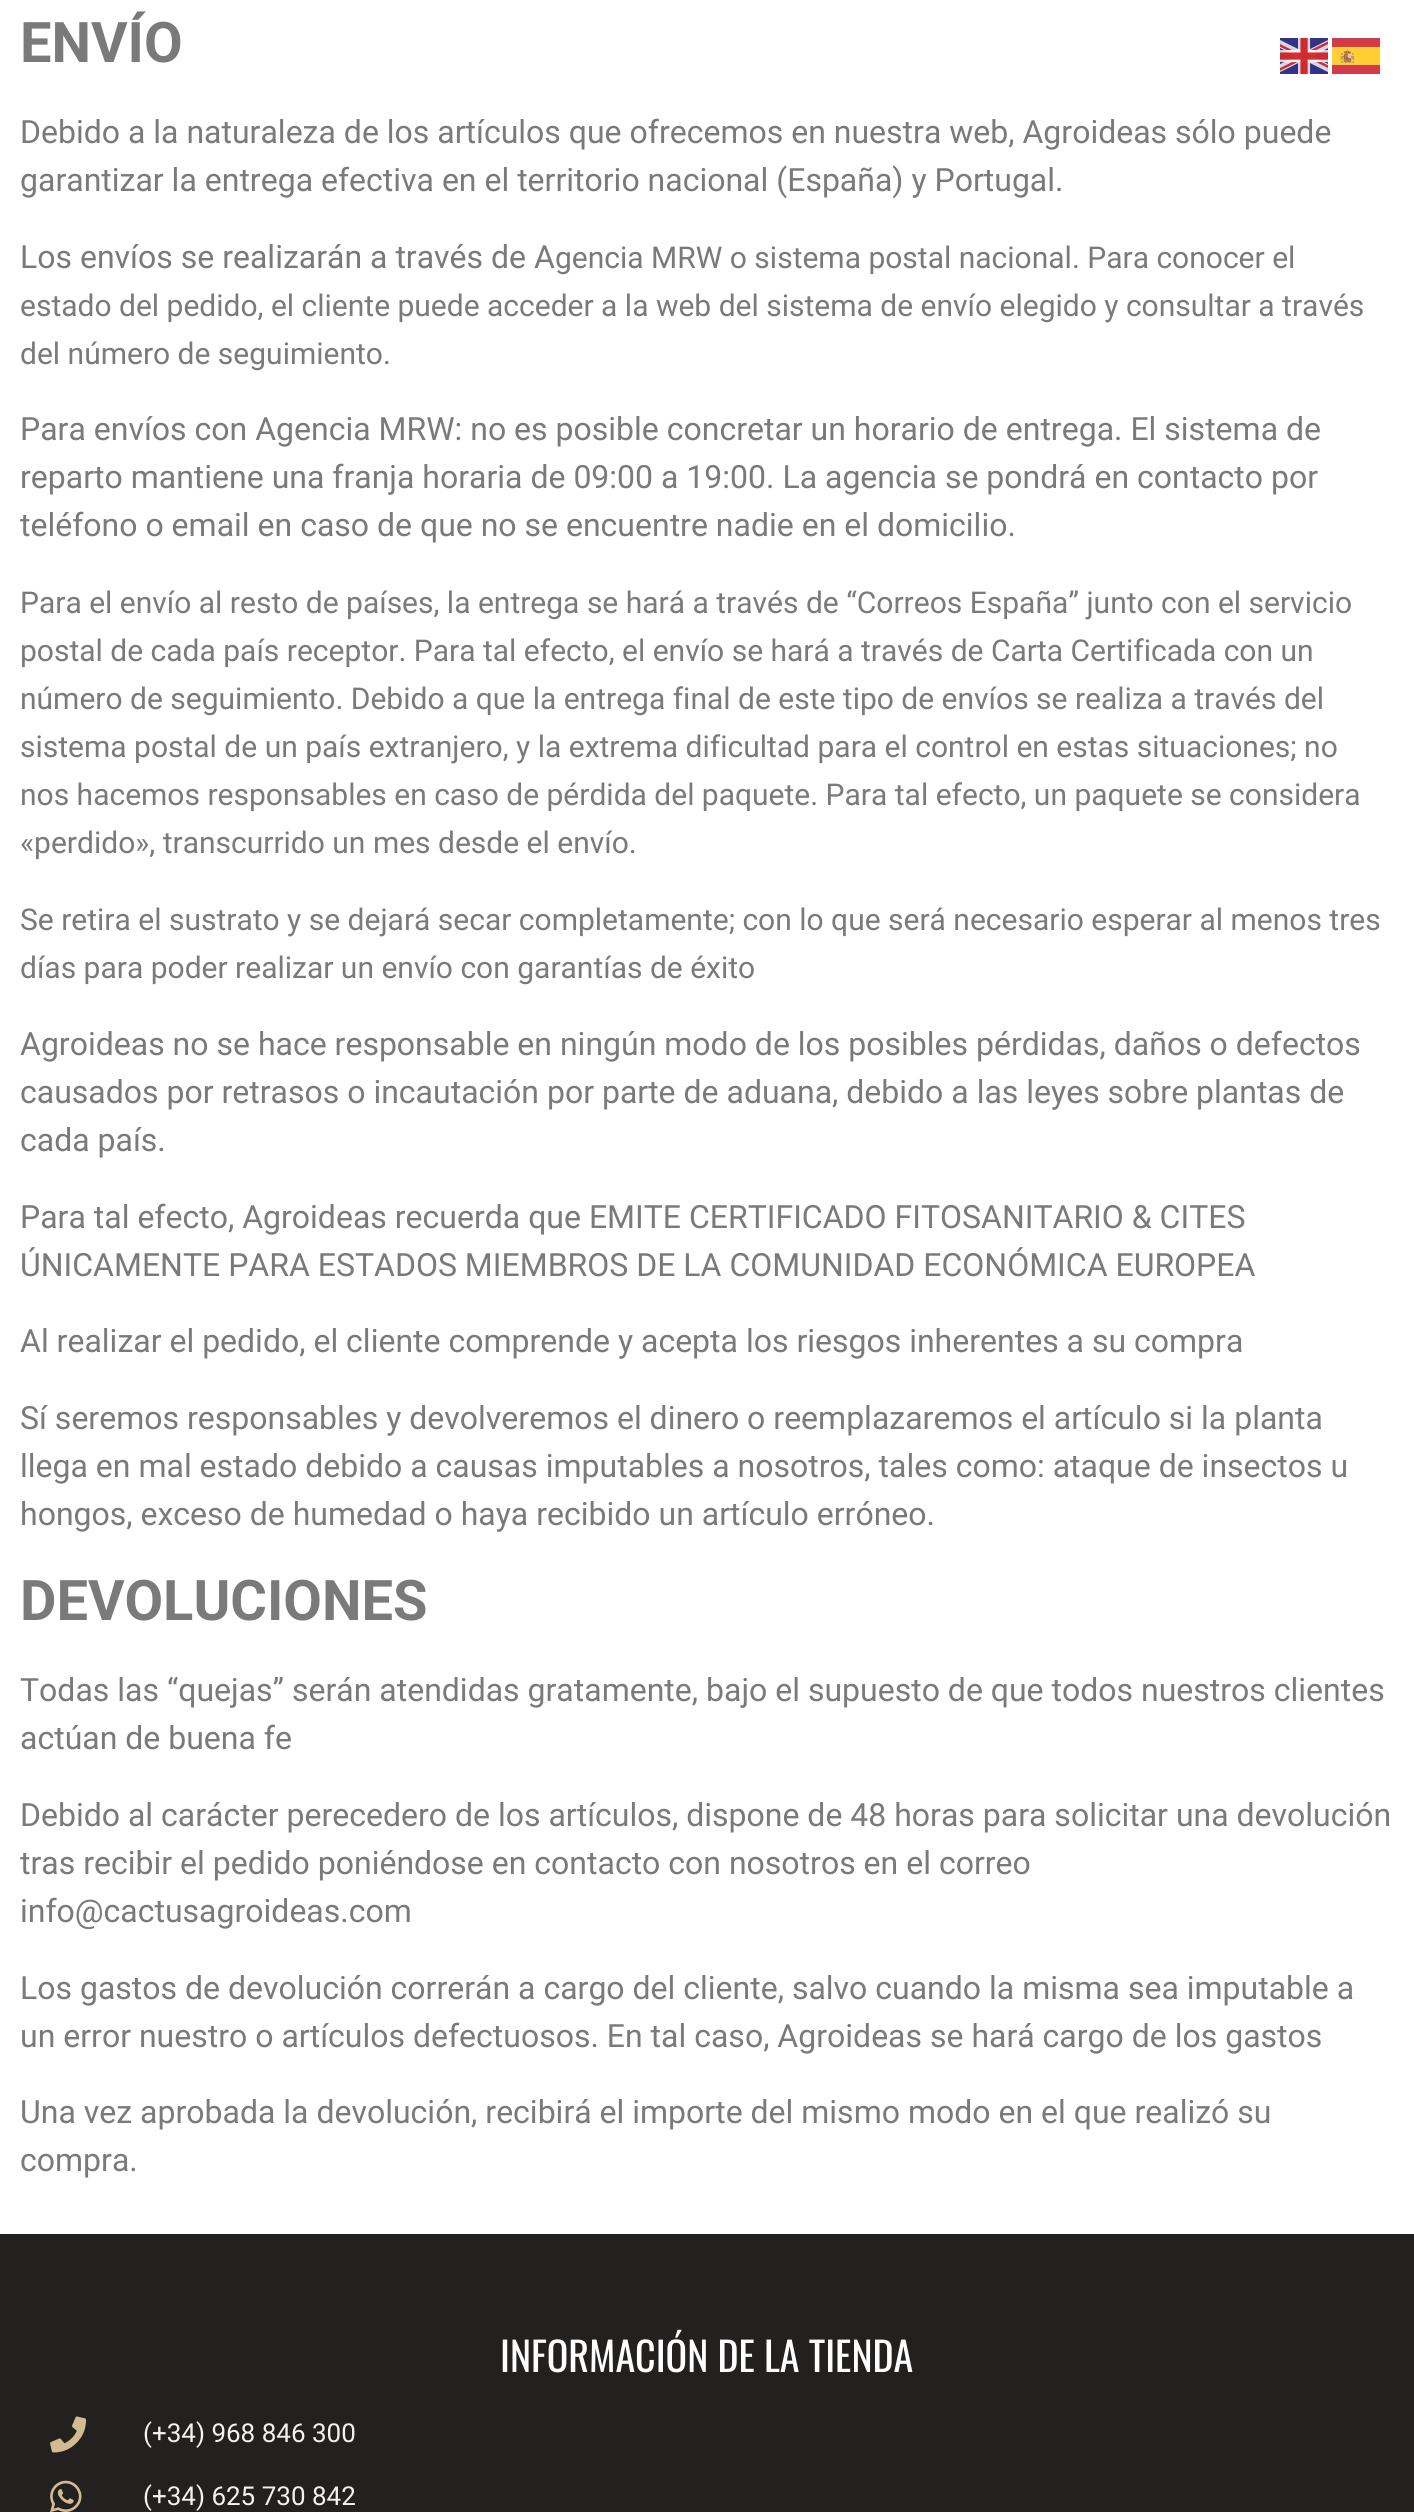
#include <cairo.h>
#include <math.h>
#include <stddef.h>

static cairo_t *ctx;

static void use_color(int r, int g, int b) {
    cairo_set_source_rgb(ctx, r / 255.0, g / 255.0, b / 255.0);
}

static void picture(const char *path, double x, double y, double w, double h) {
    cairo_surface_t *image = cairo_image_surface_create_from_png(path);
    cairo_save(ctx);
    cairo_set_source_surface(ctx, image, x, y);
    cairo_rectangle(ctx, x, y, w, h);
    cairo_fill(ctx);
    cairo_restore(ctx);
    cairo_surface_destroy(image);
}

int main(void) {
    cairo_surface_t *surface = cairo_image_surface_create(CAIRO_FORMAT_RGB24, 1414, 2512);
    ctx = cairo_create(surface);
    cairo_font_options_t *options = cairo_font_options_create();
    cairo_font_options_set_hint_metrics(options, CAIRO_HINT_METRICS_OFF);
    cairo_font_options_set_hint_style(options, CAIRO_HINT_STYLE_NONE);
    cairo_set_font_options(ctx, options);
    cairo_set_miter_limit(ctx, 4);
    use_color(255, 255, 255);
    cairo_paint(ctx);
    cairo_select_font_face(ctx, "Roboto", CAIRO_FONT_SLANT_NORMAL, CAIRO_FONT_WEIGHT_BOLD);
    cairo_set_font_size(ctx, 56);
    use_color(122, 122, 122);
    cairo_move_to(ctx, 20, 62);
    cairo_show_text(ctx, "ENVÍO");
    cairo_select_font_face(ctx, "Roboto", CAIRO_FONT_SLANT_NORMAL, CAIRO_FONT_WEIGHT_NORMAL);
    cairo_set_font_size(ctx, 32);
    cairo_move_to(ctx, 20, 143);
    cairo_show_text(ctx, "Debido a la naturaleza de los artículos que ofrecemos en nuestra web, Agroideas sólo puede");
    cairo_move_to(ctx, 20, 191);
    cairo_show_text(ctx, "garantizar la entrega efectiva en el territorio nacional (España) y Portugal.");
    cairo_move_to(ctx, 20, 268);
    cairo_show_text(ctx, "Los envíos se realizarán a través de A");
    cairo_set_font_size(ctx, 30);
    cairo_move_to(ctx, 555, 268);
    cairo_show_text(ctx, "gencia MRW o sistema postal nacional. Para conocer el");
    cairo_move_to(ctx, 20, 316);
    cairo_show_text(ctx, "estado del pedido, el cliente puede acceder a la web del sistema de envío elegido y consultar a través");
    cairo_move_to(ctx, 20, 364);
    cairo_show_text(ctx, "del número de seguimiento.");
    cairo_set_font_size(ctx, 32);
    cairo_move_to(ctx, 20, 440);
    cairo_show_text(ctx, "Para envíos con Agencia MRW: no es posible concretar un horario de entrega. El sistema de");
    cairo_move_to(ctx, 20, 488);
    cairo_show_text(ctx, "reparto mantiene una franja horaria de 09:00 a 19:00. La agencia se pondrá en contacto por");
    cairo_move_to(ctx, 20, 536);
    cairo_show_text(ctx, "teléfono o email en caso de que no se encuentre nadie en el domicilio.");
    cairo_set_font_size(ctx, 30);
    cairo_move_to(ctx, 20, 613);
    cairo_show_text(ctx, "Para el envío al resto de países, la entrega se hará a través de “Correos España” junto con el servicio");
    cairo_move_to(ctx, 20, 661);
    cairo_show_text(ctx, "postal de cada país receptor. Para tal efecto, el envío se hará a través de Carta Certificada con un");
    cairo_move_to(ctx, 20, 709);
    cairo_show_text(ctx, "número de seguimiento. Debido a que la entrega final de este tipo de envíos se realiza a través del");
    cairo_move_to(ctx, 20, 757);
    cairo_show_text(ctx, "sistema postal de un país extranjero, y la extrema dificultad para el control en estas situaciones; no");
    cairo_move_to(ctx, 20, 805);
    cairo_show_text(ctx, "nos hacemos responsables en caso de pérdida del paquete. Para tal efecto, un paquete se considera");
    cairo_move_to(ctx, 20, 853);
    cairo_show_text(ctx, "«perdido», transcurrido un mes desde el envío.");
    cairo_move_to(ctx, 20, 930);
    cairo_show_text(ctx, "Se retira el sustrato y se dejará secar completamente; con lo que será necesario esperar al menos tres");
    cairo_move_to(ctx, 20, 978);
    cairo_show_text(ctx, "días para poder realizar un envío con garantías de éxito");
    cairo_set_font_size(ctx, 32);
    cairo_move_to(ctx, 20, 1055);
    cairo_show_text(ctx, "Agroideas no se hace responsable en ningún modo de los posibles pérdidas, daños o defectos");
    cairo_move_to(ctx, 20, 1103);
    cairo_show_text(ctx, "causados por retrasos o incautación por parte de aduana, debido a las leyes sobre plantas de");
    cairo_move_to(ctx, 20, 1151);
    cairo_show_text(ctx, "cada país.");
    cairo_move_to(ctx, 20, 1228);
    cairo_show_text(ctx, "Para tal efecto, Agroideas recuerda que EMITE CERTIFICADO FITOSANITARIO & CITES");
    cairo_move_to(ctx, 20, 1276);
    cairo_show_text(ctx, "ÚNICAMENTE PARA ESTADOS MIEMBROS DE LA COMUNIDAD ECONÓMICA EUROPEA");
    cairo_move_to(ctx, 20, 1352);
    cairo_show_text(ctx, "Al realizar el pedido, el cliente comprende y acepta los riesgos inherentes a su compra");
    cairo_move_to(ctx, 20, 1429);
    cairo_show_text(ctx, "Sí seremos responsables y devolveremos el dinero o reemplazaremos el artículo si la planta");
    cairo_move_to(ctx, 20, 1477);
    cairo_show_text(ctx, "llega en mal estado debido a causas imputables a nosotros, tales como: ataque de insectos u");
    cairo_move_to(ctx, 20, 1525);
    cairo_show_text(ctx, "hongos, exceso de humedad o haya recibido un artículo erróneo.");
    cairo_select_font_face(ctx, "Roboto", CAIRO_FONT_SLANT_NORMAL, CAIRO_FONT_WEIGHT_BOLD);
    cairo_set_font_size(ctx, 56);
    cairo_move_to(ctx, 20, 1620);
    cairo_show_text(ctx, "DEVOLUCIONES");
    cairo_select_font_face(ctx, "Roboto", CAIRO_FONT_SLANT_NORMAL, CAIRO_FONT_WEIGHT_NORMAL);
    cairo_set_font_size(ctx, 32);
    cairo_move_to(ctx, 20, 1701);
    cairo_show_text(ctx, "Todas las “quejas” serán atendidas gratamente, bajo el supuesto de que todos nuestros clientes");
    cairo_move_to(ctx, 20, 1749);
    cairo_show_text(ctx, "actúan de buena fe");
    cairo_move_to(ctx, 20, 1826);
    cairo_show_text(ctx, "Debido al carácter perecedero de los artículos, dispone de 48 horas para solicitar una devolución");
    cairo_move_to(ctx, 20, 1874);
    cairo_show_text(ctx, "tras recibir el pedido poniéndose en contacto con nosotros en el correo");
    cairo_move_to(ctx, 20, 1922);
    cairo_show_text(ctx, "info@cactusagroideas.com");
    cairo_move_to(ctx, 20, 1999);
    cairo_show_text(ctx, "Los gastos de devolución correrán a cargo del cliente, salvo cuando la misma sea imputable a");
    cairo_move_to(ctx, 20, 2047);
    cairo_show_text(ctx, "un error nuestro o artículos defectuosos. En tal caso, Agroideas se hará cargo de los gastos");
    cairo_move_to(ctx, 20, 2123);
    cairo_show_text(ctx, "Una vez aprobada la devolución, recibirá el importe del mismo modo en el que realizó su");
    cairo_move_to(ctx, 20, 2171);
    cairo_show_text(ctx, "compra.");
    picture("img1.png", 1280, 38, 48, 36);
    picture("img2.png", 1332, 38, 48, 36);
    use_color(35, 32, 32);
    cairo_rectangle(ctx, 0, 2234, 1414, 278);
    cairo_fill(ctx);
    cairo_select_font_face(ctx, "Oswald", CAIRO_FONT_SLANT_NORMAL, CAIRO_FONT_WEIGHT_NORMAL);
    cairo_set_font_size(ctx, 40);
    use_color(255, 255, 255);
    cairo_move_to(ctx, 500, 2372);
    cairo_show_text(ctx, "INFORMACIÓN DE LA TIENDA");
    picture("img3.png", 50, 2416, 37, 37);
    cairo_select_font_face(ctx, "Roboto", CAIRO_FONT_SLANT_NORMAL, CAIRO_FONT_WEIGHT_NORMAL);
    cairo_set_font_size(ctx, 26);
    use_color(242, 242, 242);
    cairo_move_to(ctx, 143, 2442);
    cairo_show_text(ctx, "(+34) 968 846 300");
    picture("img4.png", 50, 2480, 32, 32);
    cairo_move_to(ctx, 143, 2505);
    cairo_show_text(ctx, "(+34) 625 730 842");
    cairo_surface_write_to_png(surface, "result.png");
    cairo_font_options_destroy(options);
    cairo_destroy(ctx);
    cairo_surface_destroy(surface);
    return 0;
}
